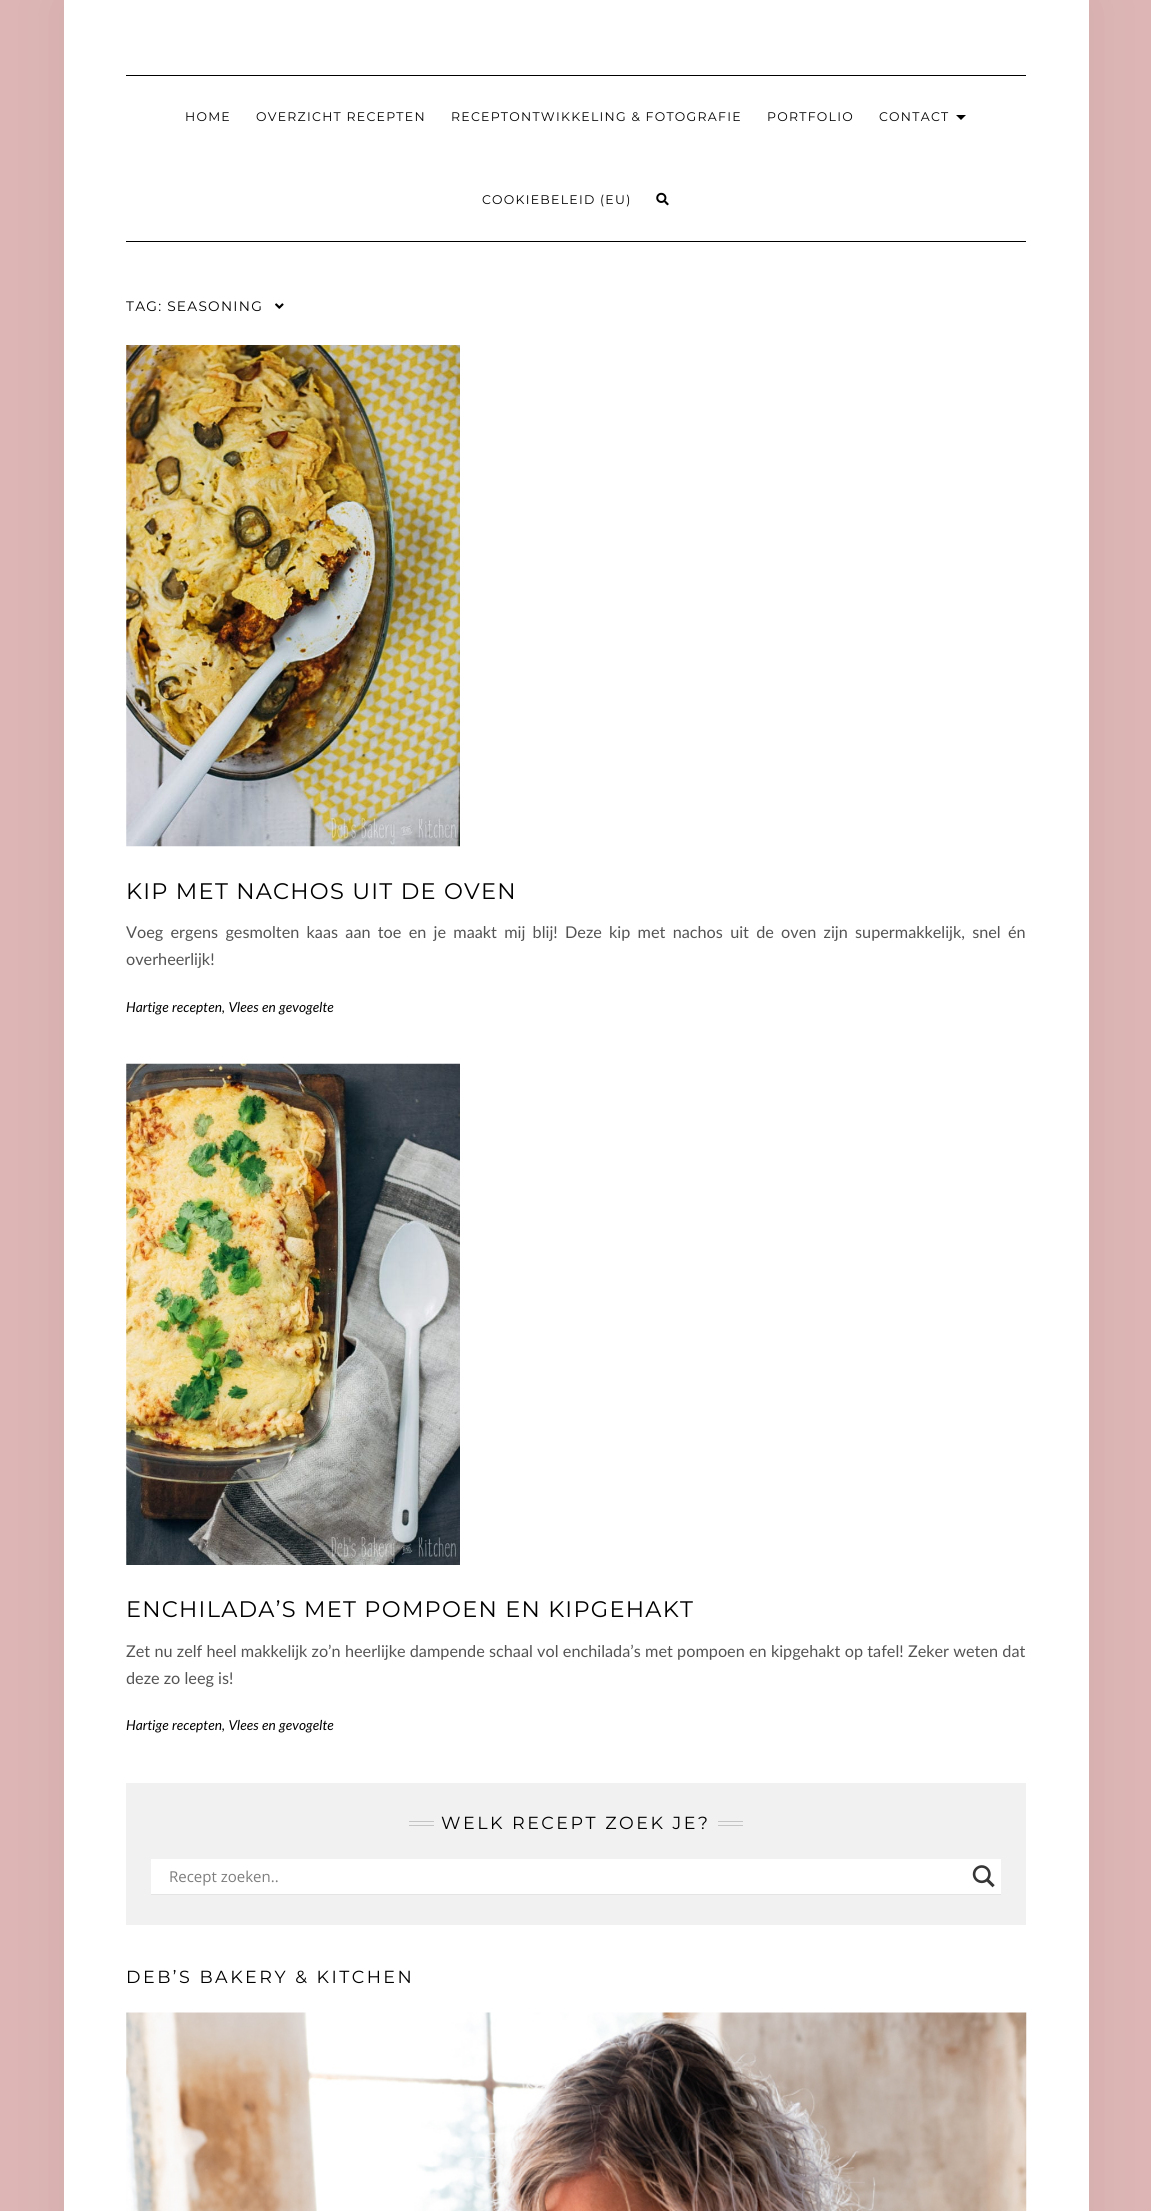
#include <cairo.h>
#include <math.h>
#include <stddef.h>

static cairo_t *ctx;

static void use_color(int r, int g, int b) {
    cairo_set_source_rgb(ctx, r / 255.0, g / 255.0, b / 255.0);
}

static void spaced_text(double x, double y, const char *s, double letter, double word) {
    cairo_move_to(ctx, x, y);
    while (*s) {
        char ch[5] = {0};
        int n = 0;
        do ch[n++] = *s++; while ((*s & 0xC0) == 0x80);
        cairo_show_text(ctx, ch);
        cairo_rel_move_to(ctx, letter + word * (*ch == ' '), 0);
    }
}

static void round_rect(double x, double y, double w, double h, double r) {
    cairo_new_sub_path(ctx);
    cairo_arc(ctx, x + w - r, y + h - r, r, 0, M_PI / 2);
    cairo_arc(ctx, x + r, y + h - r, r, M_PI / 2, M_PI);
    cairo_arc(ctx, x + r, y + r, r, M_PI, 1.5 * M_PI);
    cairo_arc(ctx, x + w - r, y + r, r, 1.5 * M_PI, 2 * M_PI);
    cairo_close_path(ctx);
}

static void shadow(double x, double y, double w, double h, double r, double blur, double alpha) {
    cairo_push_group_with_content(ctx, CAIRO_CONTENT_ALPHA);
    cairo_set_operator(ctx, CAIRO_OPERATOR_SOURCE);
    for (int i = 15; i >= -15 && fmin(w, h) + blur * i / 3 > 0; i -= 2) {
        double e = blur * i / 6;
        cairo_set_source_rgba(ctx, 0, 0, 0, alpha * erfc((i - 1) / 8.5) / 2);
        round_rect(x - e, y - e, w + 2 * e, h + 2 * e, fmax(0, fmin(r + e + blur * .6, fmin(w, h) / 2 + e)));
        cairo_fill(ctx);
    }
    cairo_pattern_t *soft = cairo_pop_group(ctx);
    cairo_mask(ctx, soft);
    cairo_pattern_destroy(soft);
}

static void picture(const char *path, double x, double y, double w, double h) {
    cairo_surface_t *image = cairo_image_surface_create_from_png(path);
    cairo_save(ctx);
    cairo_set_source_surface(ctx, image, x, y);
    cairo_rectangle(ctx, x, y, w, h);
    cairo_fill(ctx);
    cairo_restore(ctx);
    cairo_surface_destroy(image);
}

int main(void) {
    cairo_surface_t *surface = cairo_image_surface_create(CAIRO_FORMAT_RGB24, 1151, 2211);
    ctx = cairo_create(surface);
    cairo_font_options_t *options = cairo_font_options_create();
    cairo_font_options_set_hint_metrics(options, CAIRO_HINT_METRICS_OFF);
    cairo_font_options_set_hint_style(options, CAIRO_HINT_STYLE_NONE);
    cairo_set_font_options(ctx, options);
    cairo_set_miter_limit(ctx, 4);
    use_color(221, 181, 181);
    cairo_paint(ctx);
    use_color(0, 0, 0);
    shadow(64, 0, 1025, 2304, 0, 31, 0.06);
    use_color(255, 255, 255);
    cairo_rectangle(ctx, 64, 0, 1025, 2211);
    cairo_fill(ctx);
    use_color(0, 0, 0);
    cairo_rectangle(ctx, 126, 75, 900, 1);
    cairo_fill(ctx);
    cairo_rectangle(ctx, 126, 241, 900, 1);
    cairo_fill(ctx);
    cairo_select_font_face(ctx, "Montserrat", CAIRO_FONT_SLANT_NORMAL, CAIRO_FONT_WEIGHT_NORMAL);
    cairo_set_font_size(ctx, 12.5);
    spaced_text(185, 121, "HOME", 1.25, 0);
    spaced_text(256, 121, "OVERZICHT RECEPTEN", 1.25, 0);
    spaced_text(451, 121, "RECEPTONTWIKKELING & FOTOGRAFIE", 1.25, 0);
    spaced_text(767, 121, "PORTFOLIO", 1.25, 0);
    spaced_text(879, 121, "CONTACT", 1.25, 0);
    cairo_new_path(ctx);
    cairo_move_to(ctx, 956, 115);
    cairo_line_to(ctx, 966, 115);
    cairo_line_to(ctx, 961, 120);
    cairo_close_path(ctx);
    cairo_fill(ctx);
    spaced_text(482, 204, "COOKIEBELEID (EU)", 1.25, 0);
    picture("img1.png", 656, 192, 13, 14);
    cairo_set_font_size(ctx, 13.75);
    spaced_text(126, 311, "TAG: SEASONING", 1.25, 0);
    picture("img2.png", 275, 303, 9, 6);
    picture("img3.png", 126, 345, 334, 502);
    cairo_set_font_size(ctx, 22.5);
    spaced_text(126, 899, "KIP MET NACHOS UIT DE OVEN", 1.25, 0);
    cairo_select_font_face(ctx, "Lato", CAIRO_FONT_SLANT_NORMAL, CAIRO_FONT_WEIGHT_NORMAL);
    cairo_set_font_size(ctx, 16.25);
    use_color(84, 84, 84);
    spaced_text(126, 938, "Voeg ergens gesmolten kaas aan toe en je maakt mij blij! Deze kip met nachos uit de oven zijn supermakkelijk, snel én", 0, 3.1);
    cairo_move_to(ctx, 126, 965);
    cairo_show_text(ctx, "overheerlijk!");
    cairo_select_font_face(ctx, "Lato", CAIRO_FONT_SLANT_ITALIC, CAIRO_FONT_WEIGHT_NORMAL);
    cairo_set_font_size(ctx, 13.75);
    use_color(0, 0, 0);
    cairo_move_to(ctx, 126, 1012);
    cairo_show_text(ctx, "Hartige recepten, Vlees en gevogelte");
    picture("img4.png", 126, 1063, 334, 502);
    cairo_select_font_face(ctx, "Montserrat", CAIRO_FONT_SLANT_NORMAL, CAIRO_FONT_WEIGHT_NORMAL);
    cairo_set_font_size(ctx, 22.5);
    spaced_text(126, 1617, "ENCHILADA’S MET POMPOEN EN KIPGEHAKT", 1.25, 0);
    cairo_select_font_face(ctx, "Lato", CAIRO_FONT_SLANT_NORMAL, CAIRO_FONT_WEIGHT_NORMAL);
    cairo_set_font_size(ctx, 16.25);
    use_color(84, 84, 84);
    spaced_text(126, 1657, "Zet nu zelf heel makkelijk zo’n heerlijke dampende schaal vol enchilada’s met pompoen en kipgehakt op tafel! Zeker weten dat", 0, 0.1);
    cairo_move_to(ctx, 126, 1684);
    cairo_show_text(ctx, "deze zo leeg is!");
    cairo_select_font_face(ctx, "Lato", CAIRO_FONT_SLANT_ITALIC, CAIRO_FONT_WEIGHT_NORMAL);
    cairo_set_font_size(ctx, 13.75);
    use_color(0, 0, 0);
    cairo_move_to(ctx, 126, 1730);
    cairo_show_text(ctx, "Hartige recepten, Vlees en gevogelte");
    use_color(241, 241, 241);
    cairo_rectangle(ctx, 126, 1783, 900, 142);
    cairo_fill(ctx);
    use_color(196, 196, 196);
    cairo_rectangle(ctx, 409, 1821, 25, 1);
    cairo_fill(ctx);
    cairo_rectangle(ctx, 409, 1825, 25, 1);
    cairo_fill(ctx);
    cairo_select_font_face(ctx, "Montserrat", CAIRO_FONT_SLANT_NORMAL, CAIRO_FONT_WEIGHT_NORMAL);
    cairo_set_font_size(ctx, 17.5);
    use_color(0, 0, 0);
    spaced_text(441, 1829, "WELK RECEPT ZOEK JE?", 2.5, 0);
    use_color(196, 196, 196);
    cairo_rectangle(ctx, 718, 1821, 25, 1);
    cairo_fill(ctx);
    cairo_rectangle(ctx, 718, 1825, 25, 1);
    cairo_fill(ctx);
    use_color(228, 228, 228);
    cairo_new_path(ctx);
    cairo_move_to(ctx, 151, 1860);
    cairo_line_to(ctx, 151, 1895);
    cairo_line_to(ctx, 1001, 1895);
    cairo_line_to(ctx, 1001, 1894);
    cairo_line_to(ctx, 151, 1894);
    cairo_close_path(ctx);
    cairo_fill(ctx);
    use_color(255, 255, 255);
    cairo_rectangle(ctx, 151, 1859, 850, 35);
    cairo_fill(ctx);
    cairo_select_font_face(ctx, "Open Sans", CAIRO_FONT_SLANT_NORMAL, CAIRO_FONT_WEIGHT_NORMAL);
    cairo_set_font_size(ctx, 15);
    use_color(125, 125, 125);
    cairo_move_to(ctx, 169, 1882);
    cairo_show_text(ctx, "Recept zoeken..");
    picture("img5.png", 972, 1865, 23, 23);
    cairo_select_font_face(ctx, "Montserrat", CAIRO_FONT_SLANT_NORMAL, CAIRO_FONT_WEIGHT_NORMAL);
    cairo_set_font_size(ctx, 17.5);
    use_color(0, 0, 0);
    spaced_text(126, 1983, "DEB’S BAKERY & KITCHEN", 2.5, 0);
    picture("img6.png", 126, 2012, 901, 199);
    cairo_surface_write_to_png(surface, "result.png");
    cairo_font_options_destroy(options);
    cairo_destroy(ctx);
    cairo_surface_destroy(surface);
    return 0;
}
